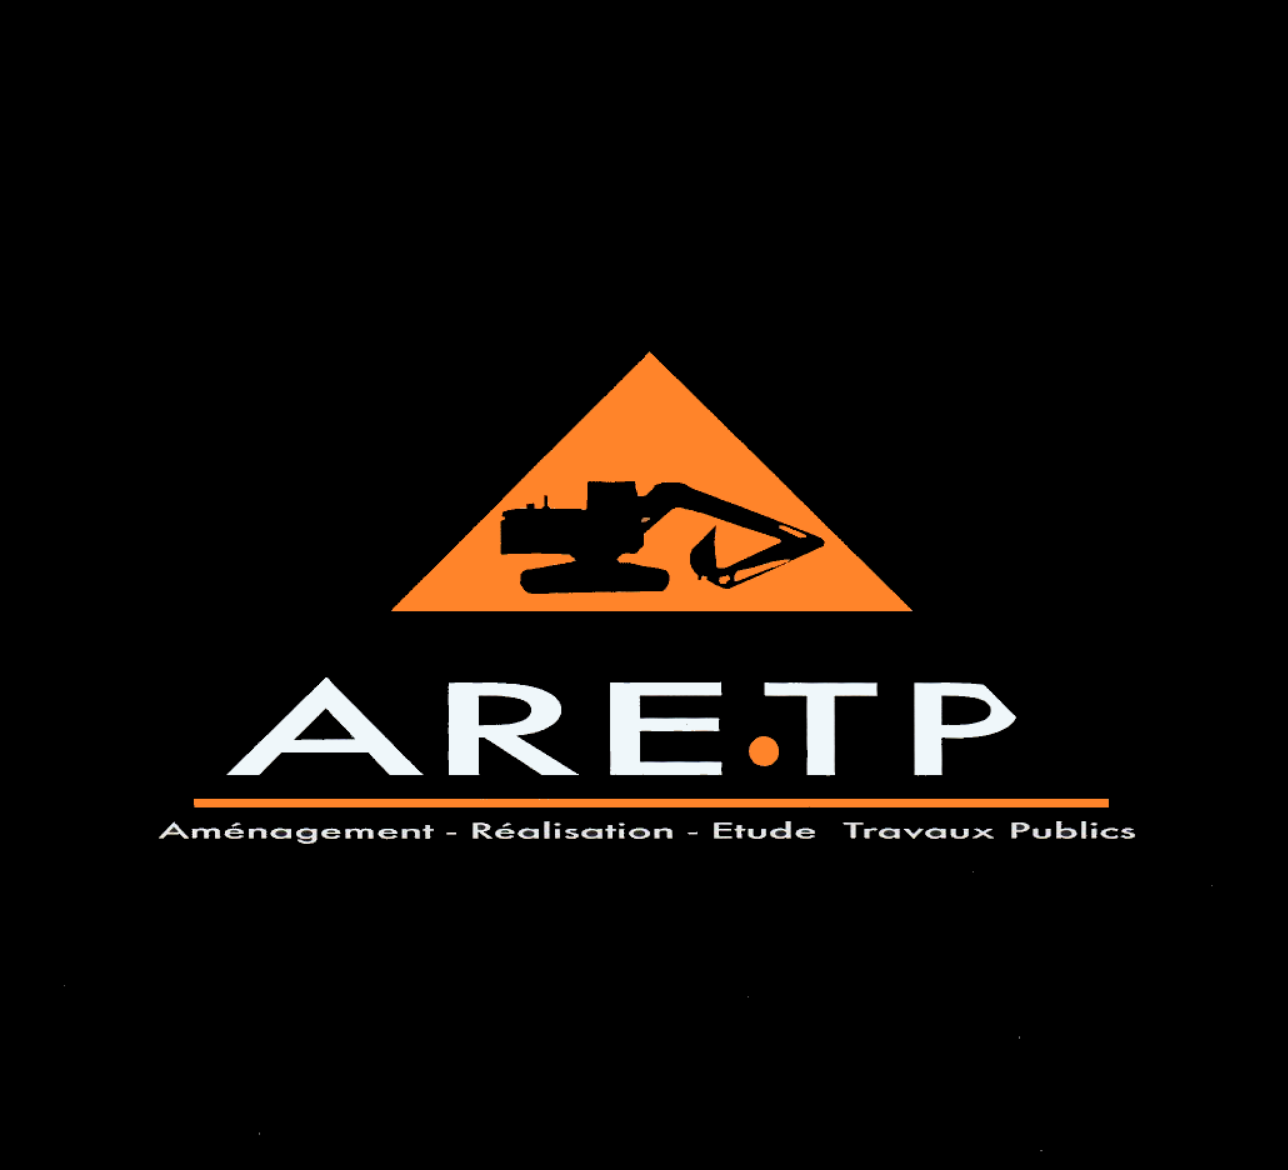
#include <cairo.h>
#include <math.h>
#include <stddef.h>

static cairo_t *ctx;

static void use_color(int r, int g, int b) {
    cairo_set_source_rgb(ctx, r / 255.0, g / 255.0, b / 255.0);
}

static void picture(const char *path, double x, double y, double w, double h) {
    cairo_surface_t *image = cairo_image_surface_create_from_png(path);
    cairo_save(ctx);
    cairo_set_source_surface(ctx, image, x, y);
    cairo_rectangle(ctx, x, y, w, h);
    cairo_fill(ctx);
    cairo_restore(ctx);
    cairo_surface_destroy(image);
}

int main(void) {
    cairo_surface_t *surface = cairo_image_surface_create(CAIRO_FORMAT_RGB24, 1288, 1170);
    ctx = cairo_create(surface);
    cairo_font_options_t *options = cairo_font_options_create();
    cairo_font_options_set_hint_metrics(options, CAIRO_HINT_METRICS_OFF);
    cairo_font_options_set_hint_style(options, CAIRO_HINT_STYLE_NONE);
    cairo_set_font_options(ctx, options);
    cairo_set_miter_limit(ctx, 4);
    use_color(0, 0, 0);
    cairo_paint(ctx);
    picture("img1.png", 63, 351, 1150, 801);
    cairo_surface_write_to_png(surface, "result.png");
    cairo_font_options_destroy(options);
    cairo_destroy(ctx);
    cairo_surface_destroy(surface);
    return 0;
}
